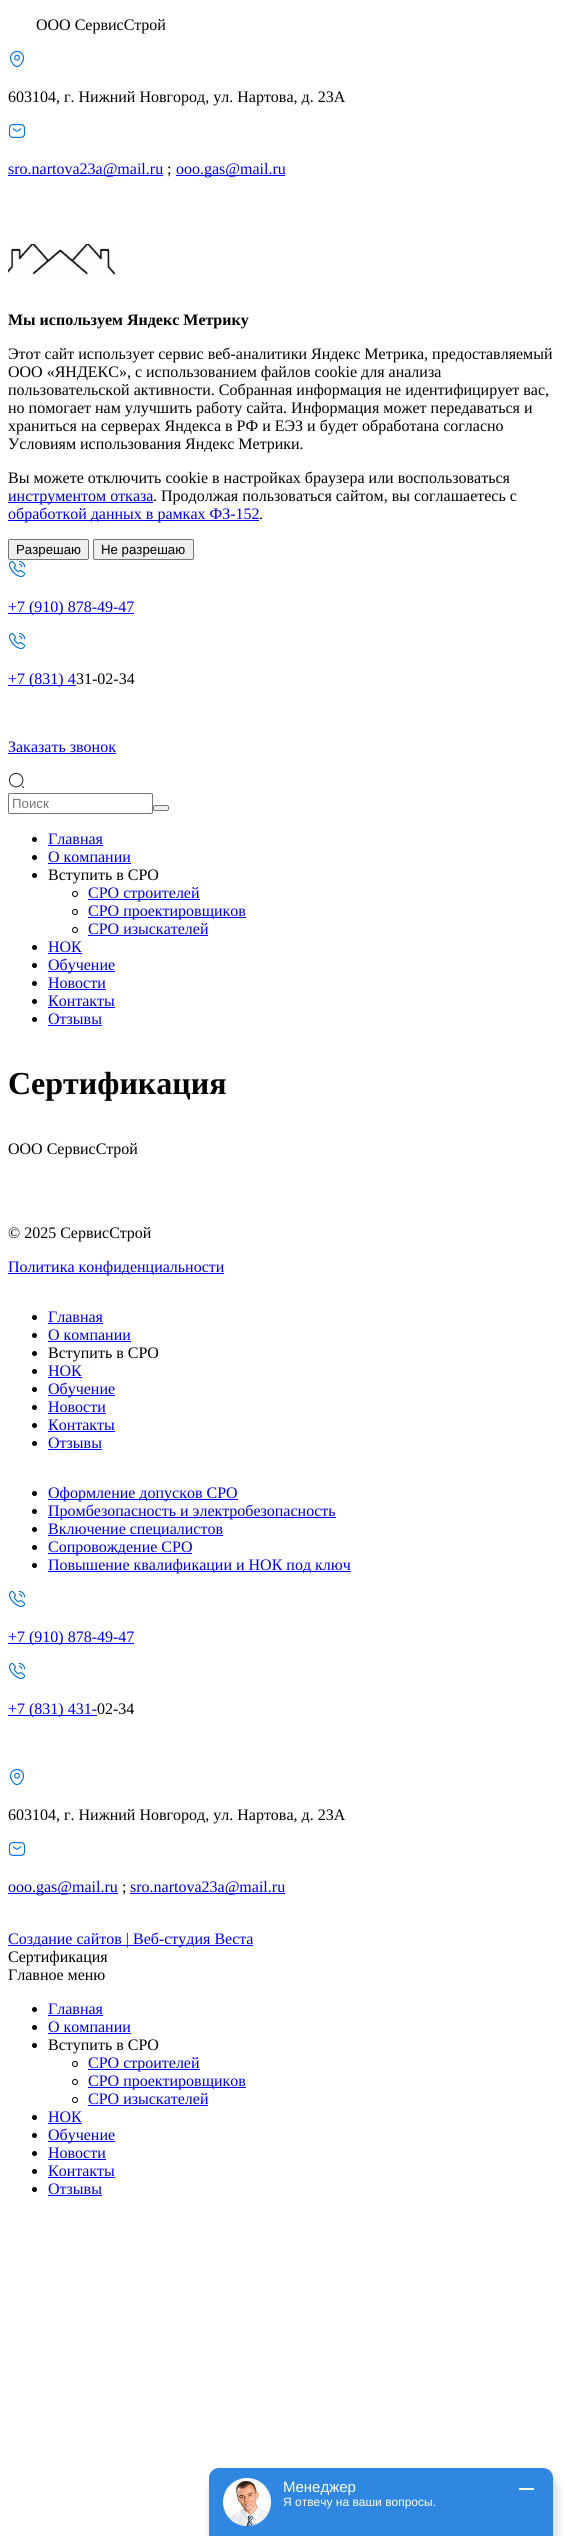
#include <cairo.h>
#include <math.h>
#include <stddef.h>

static cairo_t *ctx;

static void use_color(int r, int g, int b) {
    cairo_set_source_rgb(ctx, r / 255.0, g / 255.0, b / 255.0);
}

static void round_rect(double x, double y, double w, double h, double r) {
    cairo_new_sub_path(ctx);
    cairo_arc(ctx, x + w - r, y + h - r, r, 0, M_PI / 2);
    cairo_arc(ctx, x + r, y + h - r, r, M_PI / 2, M_PI);
    cairo_arc(ctx, x + r, y + r, r, M_PI, 1.5 * M_PI);
    cairo_arc(ctx, x + w - r, y + r, r, 1.5 * M_PI, 2 * M_PI);
    cairo_close_path(ctx);
}

static void shadow(double x, double y, double w, double h, double r, double blur, double alpha) {
    cairo_push_group_with_content(ctx, CAIRO_CONTENT_ALPHA);
    cairo_set_operator(ctx, CAIRO_OPERATOR_SOURCE);
    for (int i = 15; i >= -15 && fmin(w, h) + blur * i / 3 > 0; i -= 2) {
        double e = blur * i / 6;
        cairo_set_source_rgba(ctx, 0, 0, 0, alpha * erfc((i - 1) / 8.5) / 2);
        round_rect(x - e, y - e, w + 2 * e, h + 2 * e, fmax(0, fmin(r + e + blur * .6, fmin(w, h) / 2 + e)));
        cairo_fill(ctx);
    }
    cairo_pattern_t *soft = cairo_pop_group(ctx);
    cairo_mask(ctx, soft);
    cairo_pattern_destroy(soft);
}

static void picture(const char *path, double x, double y, double w, double h) {
    cairo_surface_t *image = cairo_image_surface_create_from_png(path);
    cairo_save(ctx);
    cairo_set_source_surface(ctx, image, x, y);
    cairo_rectangle(ctx, x, y, w, h);
    cairo_fill(ctx);
    cairo_restore(ctx);
    cairo_surface_destroy(image);
}

int main(void) {
    cairo_surface_t *surface = cairo_image_surface_create(CAIRO_FORMAT_RGB24, 573, 2536);
    ctx = cairo_create(surface);
    cairo_font_options_t *options = cairo_font_options_create();
    cairo_font_options_set_hint_metrics(options, CAIRO_HINT_METRICS_OFF);
    cairo_font_options_set_hint_style(options, CAIRO_HINT_STYLE_NONE);
    cairo_set_font_options(ctx, options);
    cairo_set_miter_limit(ctx, 4);
    use_color(255, 255, 255);
    cairo_paint(ctx);
    cairo_select_font_face(ctx, "Liberation Serif", CAIRO_FONT_SLANT_NORMAL, CAIRO_FONT_WEIGHT_NORMAL);
    cairo_set_font_size(ctx, 16);
    use_color(0, 0, 0);
    cairo_move_to(ctx, 36, 30);
    cairo_show_text(ctx, "ООО СервисСтрой");
    picture("img1.png", 10, 50, 14, 18);
    cairo_move_to(ctx, 8, 102);
    cairo_show_text(ctx, "603104, г. Нижний Новгород, ул. Нартова, д. 23А");
    picture("img2.png", 8, 124, 18, 14);
    use_color(0, 0, 238);
    cairo_rectangle(ctx, 8, 175, 155, 1);
    cairo_fill(ctx);
    cairo_move_to(ctx, 8, 174);
    cairo_show_text(ctx, "sro.nartova23a@mail.ru");
    use_color(0, 0, 0);
    cairo_move_to(ctx, 167, 174);
    cairo_show_text(ctx, ";");
    use_color(0, 0, 238);
    cairo_rectangle(ctx, 176, 175, 109, 1);
    cairo_fill(ctx);
    cairo_move_to(ctx, 176, 174);
    cairo_show_text(ctx, "ooo.gas@mail.ru");
    picture("img3.png", 8, 244, 108, 31);
    cairo_select_font_face(ctx, "Liberation Serif", CAIRO_FONT_SLANT_NORMAL, CAIRO_FONT_WEIGHT_BOLD);
    use_color(0, 0, 0);
    cairo_move_to(ctx, 8, 325);
    cairo_show_text(ctx, "Мы используем Яндекс Метрику");
    cairo_select_font_face(ctx, "Liberation Serif", CAIRO_FONT_SLANT_NORMAL, CAIRO_FONT_WEIGHT_NORMAL);
    cairo_move_to(ctx, 8, 359);
    cairo_show_text(ctx, "Этот сайт использует сервис веб-аналитики Яндекс Метрика, предоставляемый");
    cairo_move_to(ctx, 8, 377);
    cairo_show_text(ctx, "ООО «ЯНДЕКС», с использованием файлов cookie для анализа");
    cairo_move_to(ctx, 8, 395);
    cairo_show_text(ctx, "пользовательской активности. Собранная информация не идентифицирует вас,");
    cairo_move_to(ctx, 8, 413);
    cairo_show_text(ctx, "но помогает нам улучшить работу сайта. Информация может передаваться и");
    cairo_move_to(ctx, 8, 431);
    cairo_show_text(ctx, "храниться на серверах Яндекса в РФ и ЕЭЗ и будет обработана согласно");
    cairo_move_to(ctx, 8, 449);
    cairo_show_text(ctx, "Условиям использования Яндекс Метрики.");
    cairo_move_to(ctx, 8, 483);
    cairo_show_text(ctx, "Вы можете отключить cookie в настройках браузера или воспользоваться");
    use_color(0, 0, 238);
    cairo_rectangle(ctx, 8, 502, 145, 1);
    cairo_fill(ctx);
    cairo_move_to(ctx, 8, 501);
    cairo_show_text(ctx, "инструментом отказа");
    use_color(0, 0, 0);
    cairo_move_to(ctx, 153, 501);
    cairo_show_text(ctx, ". Продолжая пользоваться сайтом, вы соглашаетесь с");
    use_color(0, 0, 238);
    cairo_rectangle(ctx, 8, 520, 251, 1);
    cairo_fill(ctx);
    cairo_move_to(ctx, 8, 519);
    cairo_show_text(ctx, "обработкой данных в рамках ФЗ-152");
    use_color(0, 0, 0);
    cairo_move_to(ctx, 259, 519);
    cairo_show_text(ctx, ".");
    use_color(239, 239, 239);
    round_rect(8.5, 539.5, 80, 20, 1.5);
    cairo_fill_preserve(ctx);
    use_color(118, 118, 118);
    cairo_set_line_width(ctx, 1);
    cairo_stroke(ctx);
    cairo_select_font_face(ctx, "Liberation Sans", CAIRO_FONT_SLANT_NORMAL, CAIRO_FONT_WEIGHT_NORMAL);
    cairo_set_font_size(ctx, 13.25);
    use_color(0, 0, 0);
    cairo_move_to(ctx, 16, 554);
    cairo_show_text(ctx, "Разрешаю");
    use_color(239, 239, 239);
    round_rect(93.5, 539.5, 100, 20, 1.5);
    cairo_fill_preserve(ctx);
    use_color(118, 118, 118);
    cairo_stroke(ctx);
    use_color(0, 0, 0);
    cairo_move_to(ctx, 101, 554);
    cairo_show_text(ctx, "Не разрешаю");
    picture("img4.png", 8, 560, 18, 18);
    use_color(0, 0, 238);
    cairo_rectangle(ctx, 8, 613, 126, 1);
    cairo_fill(ctx);
    cairo_select_font_face(ctx, "Liberation Serif", CAIRO_FONT_SLANT_NORMAL, CAIRO_FONT_WEIGHT_NORMAL);
    cairo_set_font_size(ctx, 16);
    cairo_move_to(ctx, 8, 612);
    cairo_show_text(ctx, "+7 (910) 878-49-47");
    picture("img4.png", 8, 632, 18, 18);
    cairo_rectangle(ctx, 8, 685, 68, 1);
    cairo_fill(ctx);
    cairo_move_to(ctx, 8, 684);
    cairo_show_text(ctx, "+7 (831) 4");
    use_color(0, 0, 0);
    cairo_move_to(ctx, 76, 684);
    cairo_show_text(ctx, "31-02-34");
    use_color(0, 0, 238);
    cairo_move_to(ctx, 8, 752);
    cairo_show_text(ctx, "Заказать звонок");
    cairo_rectangle(ctx, 8, 753, 108, 1);
    cairo_fill(ctx);
    picture("img5.png", 8, 772, 17, 17);
    round_rect(8.5, 793.5, 144, 20, 1.5);
    use_color(118, 118, 118);
    cairo_stroke(ctx);
    cairo_select_font_face(ctx, "Liberation Sans", CAIRO_FONT_SLANT_NORMAL, CAIRO_FONT_WEIGHT_NORMAL);
    cairo_set_font_size(ctx, 13.25);
    use_color(117, 117, 117);
    cairo_move_to(ctx, 12, 808);
    cairo_show_text(ctx, "Поиск");
    use_color(239, 239, 239);
    round_rect(153.5, 805.5, 15, 5, 1.5);
    cairo_fill_preserve(ctx);
    use_color(118, 118, 118);
    cairo_stroke(ctx);
    use_color(0, 0, 0);
    cairo_arc(ctx, 34.5, 839.5, 2.5, 0, 2 * M_PI);
    cairo_fill(ctx);
    cairo_select_font_face(ctx, "Liberation Serif", CAIRO_FONT_SLANT_NORMAL, CAIRO_FONT_WEIGHT_NORMAL);
    cairo_set_font_size(ctx, 16);
    use_color(0, 0, 238);
    cairo_move_to(ctx, 48, 844);
    cairo_show_text(ctx, "Главная");
    cairo_rectangle(ctx, 48, 845, 55, 1);
    cairo_fill(ctx);
    use_color(0, 0, 0);
    cairo_arc(ctx, 34.5, 857.5, 2.5, 0, 2 * M_PI);
    cairo_fill(ctx);
    use_color(0, 0, 238);
    cairo_move_to(ctx, 48, 862);
    cairo_show_text(ctx, "О компании");
    cairo_rectangle(ctx, 48, 863, 83, 1);
    cairo_fill(ctx);
    use_color(0, 0, 0);
    cairo_arc(ctx, 34.5, 875.5, 2.5, 0, 2 * M_PI);
    cairo_fill(ctx);
    cairo_move_to(ctx, 48, 880);
    cairo_show_text(ctx, "Вступить в СРО");
    cairo_new_path(ctx);
    cairo_arc(ctx, 75, 894, 2.5, 0, 2 * M_PI);
    cairo_stroke(ctx);
    use_color(0, 0, 238);
    cairo_rectangle(ctx, 88, 899, 112, 1);
    cairo_fill(ctx);
    cairo_move_to(ctx, 88, 898);
    cairo_show_text(ctx, "СРО строителей");
    cairo_new_path(ctx);
    cairo_arc(ctx, 75, 912, 2.5, 0, 2 * M_PI);
    use_color(0, 0, 0);
    cairo_stroke(ctx);
    use_color(0, 0, 238);
    cairo_rectangle(ctx, 88, 917, 158, 1);
    cairo_fill(ctx);
    cairo_move_to(ctx, 88, 916);
    cairo_show_text(ctx, "СРО проектировщиков");
    cairo_new_path(ctx);
    cairo_arc(ctx, 75, 930, 2.5, 0, 2 * M_PI);
    use_color(0, 0, 0);
    cairo_stroke(ctx);
    use_color(0, 0, 238);
    cairo_move_to(ctx, 88, 934);
    cairo_show_text(ctx, "СРО изыскателей");
    cairo_rectangle(ctx, 88, 935, 120, 1);
    cairo_fill(ctx);
    use_color(0, 0, 0);
    cairo_arc(ctx, 34.5, 947.5, 2.5, 0, 2 * M_PI);
    cairo_fill(ctx);
    use_color(0, 0, 238);
    cairo_move_to(ctx, 48, 952);
    cairo_show_text(ctx, "НОК");
    cairo_rectangle(ctx, 48, 953, 34, 1);
    cairo_fill(ctx);
    use_color(0, 0, 0);
    cairo_arc(ctx, 34.5, 965.5, 2.5, 0, 2 * M_PI);
    cairo_fill(ctx);
    use_color(0, 0, 238);
    cairo_rectangle(ctx, 48, 971, 67, 1);
    cairo_fill(ctx);
    cairo_move_to(ctx, 48, 970);
    cairo_show_text(ctx, "Обучение");
    use_color(0, 0, 0);
    cairo_new_path(ctx);
    cairo_arc(ctx, 34.5, 983.5, 2.5, 0, 2 * M_PI);
    cairo_fill(ctx);
    use_color(0, 0, 238);
    cairo_move_to(ctx, 48, 988);
    cairo_show_text(ctx, "Новости");
    cairo_rectangle(ctx, 48, 989, 58, 1);
    cairo_fill(ctx);
    use_color(0, 0, 0);
    cairo_arc(ctx, 34.5, 1001.5, 2.5, 0, 2 * M_PI);
    cairo_fill(ctx);
    use_color(0, 0, 238);
    cairo_move_to(ctx, 48, 1006);
    cairo_show_text(ctx, "Контакты");
    cairo_rectangle(ctx, 48, 1007, 67, 1);
    cairo_fill(ctx);
    use_color(0, 0, 0);
    cairo_arc(ctx, 34.5, 1019.5, 2.5, 0, 2 * M_PI);
    cairo_fill(ctx);
    use_color(0, 0, 238);
    cairo_move_to(ctx, 48, 1024);
    cairo_show_text(ctx, "Отзывы");
    cairo_rectangle(ctx, 48, 1025, 54, 1);
    cairo_fill(ctx);
    cairo_select_font_face(ctx, "Liberation Serif", CAIRO_FONT_SLANT_NORMAL, CAIRO_FONT_WEIGHT_BOLD);
    cairo_set_font_size(ctx, 32);
    use_color(0, 0, 0);
    cairo_move_to(ctx, 8, 1094);
    cairo_show_text(ctx, "Сертификация");
    cairo_select_font_face(ctx, "Liberation Serif", CAIRO_FONT_SLANT_NORMAL, CAIRO_FONT_WEIGHT_NORMAL);
    cairo_set_font_size(ctx, 16);
    cairo_move_to(ctx, 8, 1154);
    cairo_show_text(ctx, "ООО СервисСтрой");
    cairo_move_to(ctx, 8, 1238);
    cairo_show_text(ctx, "© 2025 СервисСтрой");
    use_color(0, 0, 238);
    cairo_rectangle(ctx, 8, 1273, 216, 1);
    cairo_fill(ctx);
    cairo_move_to(ctx, 8, 1272);
    cairo_show_text(ctx, "Политика конфиденциальности");
    use_color(0, 0, 0);
    cairo_new_path(ctx);
    cairo_arc(ctx, 34.5, 1317.5, 2.5, 0, 2 * M_PI);
    cairo_fill(ctx);
    use_color(0, 0, 238);
    cairo_move_to(ctx, 48, 1322);
    cairo_show_text(ctx, "Главная");
    cairo_rectangle(ctx, 48, 1323, 55, 1);
    cairo_fill(ctx);
    use_color(0, 0, 0);
    cairo_arc(ctx, 34.5, 1335.5, 2.5, 0, 2 * M_PI);
    cairo_fill(ctx);
    use_color(0, 0, 238);
    cairo_move_to(ctx, 48, 1340);
    cairo_show_text(ctx, "О компании");
    cairo_rectangle(ctx, 48, 1341, 83, 1);
    cairo_fill(ctx);
    use_color(0, 0, 0);
    cairo_arc(ctx, 34.5, 1353.5, 2.5, 0, 2 * M_PI);
    cairo_fill(ctx);
    cairo_move_to(ctx, 48, 1358);
    cairo_show_text(ctx, "Вступить в СРО");
    cairo_new_path(ctx);
    cairo_arc(ctx, 34.5, 1371.5, 2.5, 0, 2 * M_PI);
    cairo_fill(ctx);
    use_color(0, 0, 238);
    cairo_move_to(ctx, 48, 1376);
    cairo_show_text(ctx, "НОК");
    cairo_rectangle(ctx, 48, 1377, 34, 1);
    cairo_fill(ctx);
    use_color(0, 0, 0);
    cairo_arc(ctx, 34.5, 1389.5, 2.5, 0, 2 * M_PI);
    cairo_fill(ctx);
    use_color(0, 0, 238);
    cairo_rectangle(ctx, 48, 1395, 67, 1);
    cairo_fill(ctx);
    cairo_move_to(ctx, 48, 1394);
    cairo_show_text(ctx, "Обучение");
    use_color(0, 0, 0);
    cairo_new_path(ctx);
    cairo_arc(ctx, 34.5, 1407.5, 2.5, 0, 2 * M_PI);
    cairo_fill(ctx);
    use_color(0, 0, 238);
    cairo_move_to(ctx, 48, 1412);
    cairo_show_text(ctx, "Новости");
    cairo_rectangle(ctx, 48, 1413, 58, 1);
    cairo_fill(ctx);
    use_color(0, 0, 0);
    cairo_arc(ctx, 34.5, 1425.5, 2.5, 0, 2 * M_PI);
    cairo_fill(ctx);
    use_color(0, 0, 238);
    cairo_move_to(ctx, 48, 1430);
    cairo_show_text(ctx, "Контакты");
    cairo_rectangle(ctx, 48, 1431, 67, 1);
    cairo_fill(ctx);
    use_color(0, 0, 0);
    cairo_arc(ctx, 34.5, 1443.5, 2.5, 0, 2 * M_PI);
    cairo_fill(ctx);
    use_color(0, 0, 238);
    cairo_move_to(ctx, 48, 1448);
    cairo_show_text(ctx, "Отзывы");
    cairo_rectangle(ctx, 48, 1449, 54, 1);
    cairo_fill(ctx);
    use_color(0, 0, 0);
    cairo_arc(ctx, 34.5, 1493.5, 2.5, 0, 2 * M_PI);
    cairo_fill(ctx);
    use_color(0, 0, 238);
    cairo_rectangle(ctx, 48, 1499, 190, 1);
    cairo_fill(ctx);
    cairo_move_to(ctx, 48, 1498);
    cairo_show_text(ctx, "Оформление допусков СРО");
    use_color(0, 0, 0);
    cairo_new_path(ctx);
    cairo_arc(ctx, 34.5, 1511.5, 2.5, 0, 2 * M_PI);
    cairo_fill(ctx);
    use_color(0, 0, 238);
    cairo_rectangle(ctx, 48, 1517, 288, 1);
    cairo_fill(ctx);
    cairo_move_to(ctx, 48, 1516);
    cairo_show_text(ctx, "Промбезопасность и электробезопасность");
    use_color(0, 0, 0);
    cairo_new_path(ctx);
    cairo_arc(ctx, 34.5, 1529.5, 2.5, 0, 2 * M_PI);
    cairo_fill(ctx);
    use_color(0, 0, 238);
    cairo_rectangle(ctx, 48, 1535, 175, 1);
    cairo_fill(ctx);
    cairo_move_to(ctx, 48, 1534);
    cairo_show_text(ctx, "Включение специалистов");
    use_color(0, 0, 0);
    cairo_new_path(ctx);
    cairo_arc(ctx, 34.5, 1547.5, 2.5, 0, 2 * M_PI);
    cairo_fill(ctx);
    use_color(0, 0, 238);
    cairo_rectangle(ctx, 48, 1553, 144, 1);
    cairo_fill(ctx);
    cairo_move_to(ctx, 48, 1552);
    cairo_show_text(ctx, "Сопровождение СРО");
    use_color(0, 0, 0);
    cairo_new_path(ctx);
    cairo_arc(ctx, 34.5, 1565.5, 2.5, 0, 2 * M_PI);
    cairo_fill(ctx);
    use_color(0, 0, 238);
    cairo_rectangle(ctx, 48, 1571, 303, 1);
    cairo_fill(ctx);
    cairo_move_to(ctx, 48, 1570);
    cairo_show_text(ctx, "Повышение квалификации и НОК под ключ");
    picture("img4.png", 8, 1590, 18, 18);
    cairo_rectangle(ctx, 8, 1643, 126, 1);
    cairo_fill(ctx);
    cairo_move_to(ctx, 8, 1642);
    cairo_show_text(ctx, "+7 (910) 878-49-47");
    picture("img4.png", 8, 1662, 18, 18);
    cairo_rectangle(ctx, 8, 1715, 89, 1);
    cairo_fill(ctx);
    cairo_move_to(ctx, 8, 1714);
    cairo_show_text(ctx, "+7 (831) 431-");
    use_color(0, 0, 0);
    cairo_move_to(ctx, 97, 1714);
    cairo_show_text(ctx, "02-34");
    picture("img1.png", 10, 1768, 14, 18);
    cairo_move_to(ctx, 8, 1820);
    cairo_show_text(ctx, "603104, г. Нижний Новгород, ул. Нартова, д. 23А");
    picture("img2.png", 8, 1842, 18, 14);
    use_color(0, 0, 238);
    cairo_rectangle(ctx, 8, 1893, 110, 1);
    cairo_fill(ctx);
    cairo_move_to(ctx, 8, 1892);
    cairo_show_text(ctx, "ooo.gas@mail.ru");
    use_color(0, 0, 0);
    cairo_move_to(ctx, 122, 1892);
    cairo_show_text(ctx, ";");
    use_color(0, 0, 238);
    cairo_rectangle(ctx, 130, 1893, 155, 1);
    cairo_fill(ctx);
    cairo_move_to(ctx, 130, 1892);
    cairo_show_text(ctx, "sro.nartova23a@mail.ru");
    cairo_rectangle(ctx, 8, 1945, 245, 1);
    cairo_fill(ctx);
    cairo_move_to(ctx, 8, 1944);
    cairo_show_text(ctx, "Создание сайтов | Веб-студия Веста");
    use_color(0, 0, 0);
    cairo_move_to(ctx, 8, 1962);
    cairo_show_text(ctx, "Сертификация");
    cairo_move_to(ctx, 8, 1980);
    cairo_show_text(ctx, "Главное меню");
    cairo_new_path(ctx);
    cairo_arc(ctx, 34.5, 2009.5, 2.5, 0, 2 * M_PI);
    cairo_fill(ctx);
    use_color(0, 0, 238);
    cairo_move_to(ctx, 48, 2014);
    cairo_show_text(ctx, "Главная");
    cairo_rectangle(ctx, 48, 2015, 55, 1);
    cairo_fill(ctx);
    use_color(0, 0, 0);
    cairo_arc(ctx, 34.5, 2027.5, 2.5, 0, 2 * M_PI);
    cairo_fill(ctx);
    use_color(0, 0, 238);
    cairo_move_to(ctx, 48, 2032);
    cairo_show_text(ctx, "О компании");
    cairo_rectangle(ctx, 48, 2033, 83, 1);
    cairo_fill(ctx);
    use_color(0, 0, 0);
    cairo_arc(ctx, 34.5, 2045.5, 2.5, 0, 2 * M_PI);
    cairo_fill(ctx);
    cairo_move_to(ctx, 48, 2050);
    cairo_show_text(ctx, "Вступить в СРО");
    cairo_new_path(ctx);
    cairo_arc(ctx, 75, 2064, 2.5, 0, 2 * M_PI);
    cairo_stroke(ctx);
    use_color(0, 0, 238);
    cairo_rectangle(ctx, 88, 2069, 112, 1);
    cairo_fill(ctx);
    cairo_move_to(ctx, 88, 2068);
    cairo_show_text(ctx, "СРО строителей");
    cairo_new_path(ctx);
    cairo_arc(ctx, 75, 2082, 2.5, 0, 2 * M_PI);
    use_color(0, 0, 0);
    cairo_stroke(ctx);
    use_color(0, 0, 238);
    cairo_rectangle(ctx, 88, 2087, 158, 1);
    cairo_fill(ctx);
    cairo_move_to(ctx, 88, 2086);
    cairo_show_text(ctx, "СРО проектировщиков");
    cairo_new_path(ctx);
    cairo_arc(ctx, 75, 2100, 2.5, 0, 2 * M_PI);
    use_color(0, 0, 0);
    cairo_stroke(ctx);
    use_color(0, 0, 238);
    cairo_move_to(ctx, 88, 2104);
    cairo_show_text(ctx, "СРО изыскателей");
    cairo_rectangle(ctx, 88, 2105, 120, 1);
    cairo_fill(ctx);
    use_color(0, 0, 0);
    cairo_arc(ctx, 34.5, 2117.5, 2.5, 0, 2 * M_PI);
    cairo_fill(ctx);
    use_color(0, 0, 238);
    cairo_move_to(ctx, 48, 2122);
    cairo_show_text(ctx, "НОК");
    cairo_rectangle(ctx, 48, 2123, 34, 1);
    cairo_fill(ctx);
    use_color(0, 0, 0);
    cairo_arc(ctx, 34.5, 2135.5, 2.5, 0, 2 * M_PI);
    cairo_fill(ctx);
    use_color(0, 0, 238);
    cairo_rectangle(ctx, 48, 2141, 67, 1);
    cairo_fill(ctx);
    cairo_move_to(ctx, 48, 2140);
    cairo_show_text(ctx, "Обучение");
    use_color(0, 0, 0);
    cairo_new_path(ctx);
    cairo_arc(ctx, 34.5, 2153.5, 2.5, 0, 2 * M_PI);
    cairo_fill(ctx);
    use_color(0, 0, 238);
    cairo_move_to(ctx, 48, 2158);
    cairo_show_text(ctx, "Новости");
    cairo_rectangle(ctx, 48, 2159, 58, 1);
    cairo_fill(ctx);
    use_color(0, 0, 0);
    cairo_arc(ctx, 34.5, 2171.5, 2.5, 0, 2 * M_PI);
    cairo_fill(ctx);
    use_color(0, 0, 238);
    cairo_move_to(ctx, 48, 2176);
    cairo_show_text(ctx, "Контакты");
    cairo_rectangle(ctx, 48, 2177, 67, 1);
    cairo_fill(ctx);
    use_color(0, 0, 0);
    cairo_arc(ctx, 34.5, 2189.5, 2.5, 0, 2 * M_PI);
    cairo_fill(ctx);
    use_color(0, 0, 238);
    cairo_move_to(ctx, 48, 2194);
    cairo_show_text(ctx, "Отзывы");
    cairo_rectangle(ctx, 48, 2195, 54, 1);
    cairo_fill(ctx);
    use_color(0, 0, 0);
    shadow(212, 2478, 344, 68, 10, 5, 0.2);
    use_color(47, 135, 225);
    cairo_new_path(ctx);
    cairo_move_to(ctx, 219, 2468);
    cairo_line_to(ctx, 543, 2468);
    cairo_curve_to(ctx, 548.5, 2468, 553, 2472.5, 553, 2478);
    cairo_line_to(ctx, 553, 2536);
    cairo_line_to(ctx, 209, 2536);
    cairo_line_to(ctx, 209, 2478);
    cairo_curve_to(ctx, 209, 2472.5, 213.5, 2468, 219, 2468);
    cairo_close_path(ctx);
    cairo_fill(ctx);
    picture("img6.png", 223, 2478, 48, 48);
    cairo_select_font_face(ctx, "Liberation Sans", CAIRO_FONT_SLANT_NORMAL, CAIRO_FONT_WEIGHT_NORMAL);
    cairo_set_font_size(ctx, 15);
    use_color(255, 255, 255);
    cairo_move_to(ctx, 283, 2492);
    cairo_show_text(ctx, "Менеджер");
    cairo_rectangle(ctx, 519, 2488, 15, 2);
    cairo_fill(ctx);
    cairo_set_font_size(ctx, 12);
    cairo_move_to(ctx, 283, 2506);
    cairo_show_text(ctx, "Я отвечу на ваши вопросы.");
    cairo_surface_write_to_png(surface, "result.png");
    cairo_font_options_destroy(options);
    cairo_destroy(ctx);
    cairo_surface_destroy(surface);
    return 0;
}
